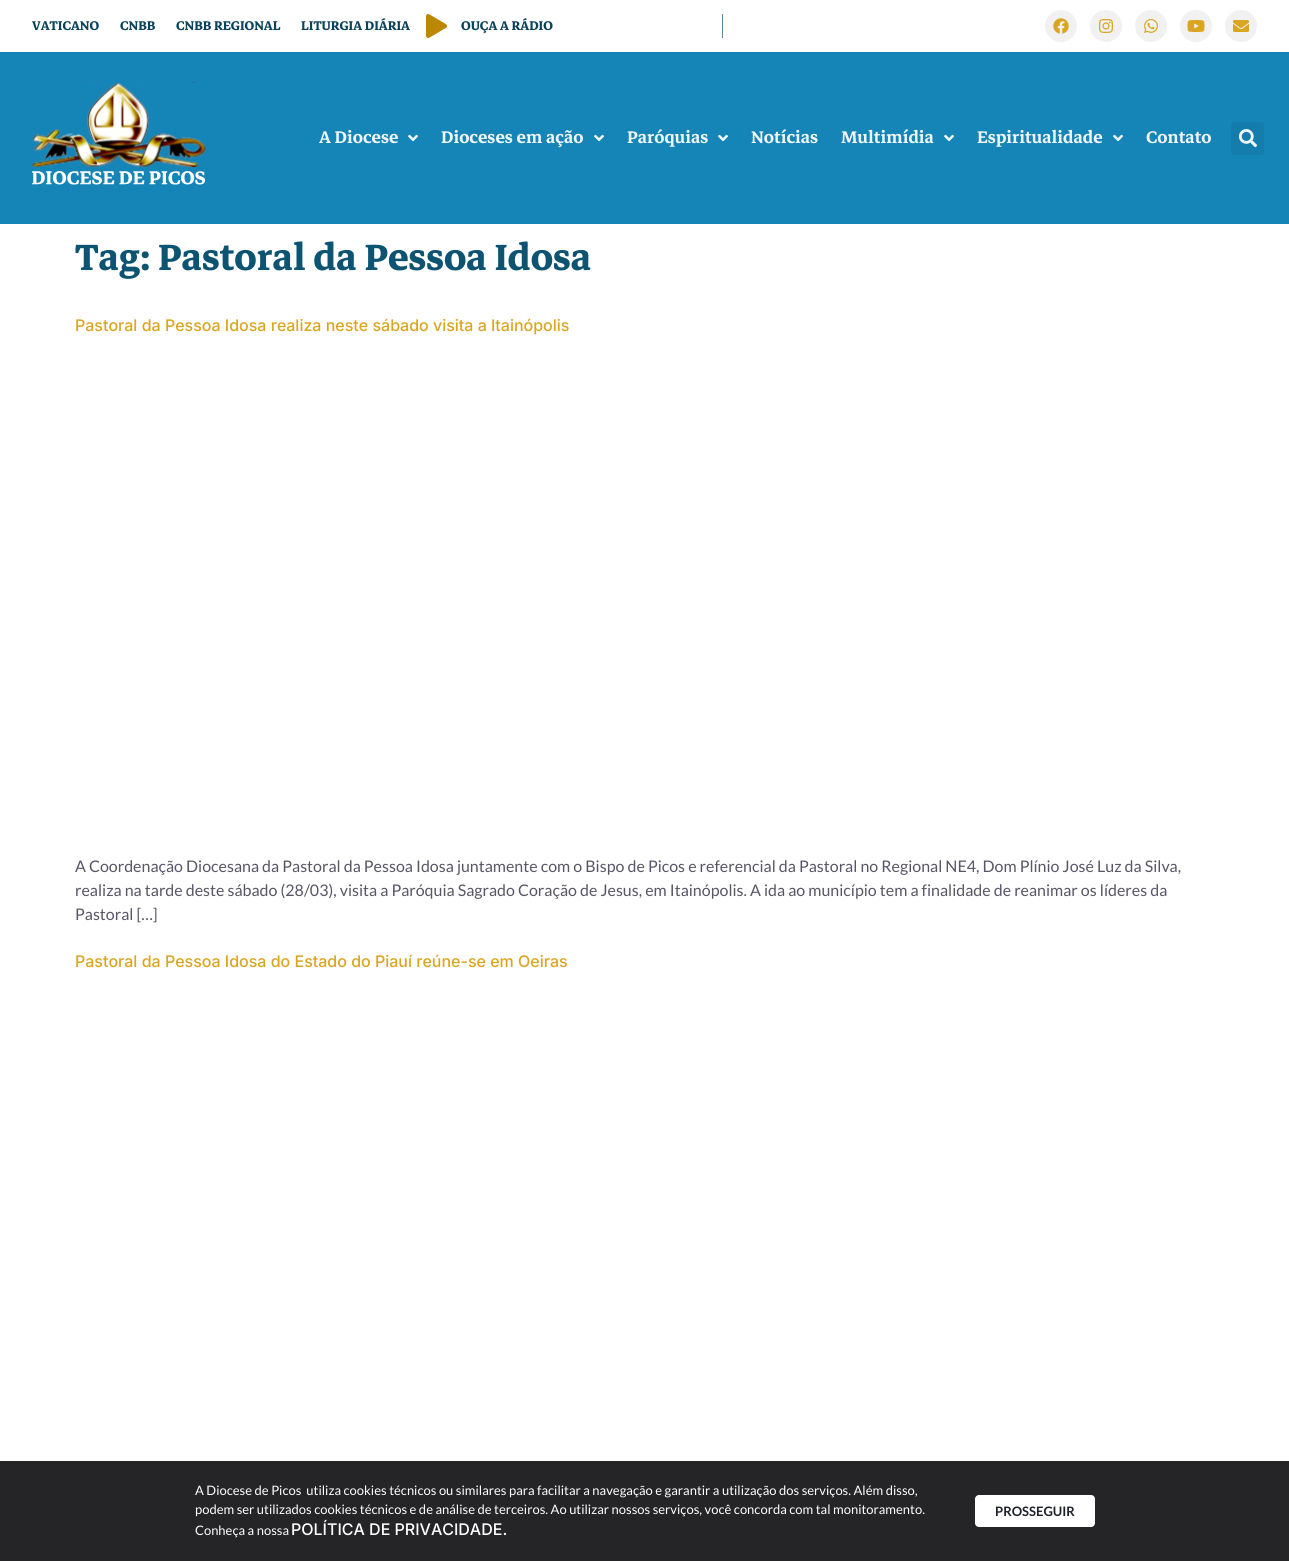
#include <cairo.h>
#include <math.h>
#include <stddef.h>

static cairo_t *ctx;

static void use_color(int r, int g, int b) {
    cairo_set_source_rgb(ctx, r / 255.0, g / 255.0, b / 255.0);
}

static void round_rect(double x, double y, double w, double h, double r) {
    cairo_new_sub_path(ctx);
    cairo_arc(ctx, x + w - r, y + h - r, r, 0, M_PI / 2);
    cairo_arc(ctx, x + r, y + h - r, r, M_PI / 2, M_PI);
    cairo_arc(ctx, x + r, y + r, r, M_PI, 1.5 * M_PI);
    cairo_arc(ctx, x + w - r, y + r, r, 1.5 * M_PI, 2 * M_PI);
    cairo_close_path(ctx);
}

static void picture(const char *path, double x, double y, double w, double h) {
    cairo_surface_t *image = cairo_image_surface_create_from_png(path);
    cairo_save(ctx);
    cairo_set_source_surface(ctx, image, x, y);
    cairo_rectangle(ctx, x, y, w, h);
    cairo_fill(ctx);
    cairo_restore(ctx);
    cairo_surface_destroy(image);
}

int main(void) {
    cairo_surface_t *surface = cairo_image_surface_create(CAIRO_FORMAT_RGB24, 1289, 1561);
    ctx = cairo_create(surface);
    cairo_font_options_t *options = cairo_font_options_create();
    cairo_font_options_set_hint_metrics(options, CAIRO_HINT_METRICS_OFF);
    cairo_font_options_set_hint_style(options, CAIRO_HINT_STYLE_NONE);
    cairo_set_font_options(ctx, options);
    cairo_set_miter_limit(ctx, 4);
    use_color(255, 255, 255);
    cairo_paint(ctx);
    use_color(93, 133, 151);
    cairo_rectangle(ctx, 722, 14, 1, 24);
    cairo_fill(ctx);
    cairo_select_font_face(ctx, "Markazi Text", CAIRO_FONT_SLANT_NORMAL, CAIRO_FONT_WEIGHT_BOLD);
    cairo_set_font_size(ctx, 18);
    use_color(11, 66, 92);
    cairo_move_to(ctx, 32, 30);
    cairo_show_text(ctx, "VATICANO");
    cairo_move_to(ctx, 120, 30);
    cairo_show_text(ctx, "CNBB");
    cairo_move_to(ctx, 176, 30);
    cairo_show_text(ctx, "CNBB REGIONAL");
    cairo_move_to(ctx, 301, 30);
    cairo_show_text(ctx, "LITURGIA DIÁRIA");
    picture("img1.png", 426, 14, 21, 24);
    cairo_move_to(ctx, 461, 30);
    cairo_show_text(ctx, "OUÇA A RÁDIO");
    use_color(241, 241, 241);
    cairo_new_path(ctx);
    cairo_arc(ctx, 1061, 26, 16, 0, 2 * M_PI);
    cairo_fill(ctx);
    picture("img2.png", 1053, 18, 16, 16);
    cairo_arc(ctx, 1106, 26, 16, 0, 2 * M_PI);
    cairo_fill(ctx);
    picture("img3.png", 1099, 19, 14, 14);
    cairo_arc(ctx, 1151, 26, 16, 0, 2 * M_PI);
    cairo_fill(ctx);
    picture("img4.png", 1144, 19, 14, 14);
    cairo_arc(ctx, 1196, 26, 16, 0, 2 * M_PI);
    cairo_fill(ctx);
    picture("img5.png", 1187, 20, 18, 12);
    cairo_arc(ctx, 1241, 26, 16, 0, 2 * M_PI);
    cairo_fill(ctx);
    picture("img6.png", 1233, 20, 16, 12);
    use_color(21, 132, 183);
    cairo_rectangle(ctx, 0, 52, 1289, 172);
    cairo_fill(ctx);
    picture("img7.png", 32, 82, 174, 103);
    cairo_select_font_face(ctx, "Markazi Text SemiBold", CAIRO_FONT_SLANT_NORMAL, CAIRO_FONT_WEIGHT_NORMAL);
    cairo_set_font_size(ctx, 24);
    use_color(239, 246, 250);
    cairo_move_to(ctx, 319, 143);
    cairo_show_text(ctx, "A Diocese");
    picture("img8.png", 408, 134, 10, 8);
    cairo_move_to(ctx, 441, 143);
    cairo_show_text(ctx, "Dioceses em ação");
    picture("img8.png", 594, 134, 10, 8);
    cairo_move_to(ctx, 627, 143);
    cairo_show_text(ctx, "Paróquias");
    picture("img8.png", 718, 134, 10, 8);
    cairo_move_to(ctx, 751, 143);
    cairo_show_text(ctx, "Notícias");
    cairo_move_to(ctx, 841, 143);
    cairo_show_text(ctx, "Multimídia");
    picture("img8.png", 944, 134, 10, 8);
    cairo_move_to(ctx, 977, 143);
    cairo_show_text(ctx, "Espiritualidade");
    picture("img8.png", 1113, 134, 10, 8);
    cairo_move_to(ctx, 1146, 143);
    cairo_show_text(ctx, "Contato");
    use_color(20, 125, 174);
    round_rect(1231, 122, 33, 33, 3);
    cairo_fill(ctx);
    picture("img9.png", 1238, 129, 19, 19);
    cairo_select_font_face(ctx, "Markazi Text", CAIRO_FONT_SLANT_NORMAL, CAIRO_FONT_WEIGHT_BOLD);
    cairo_set_font_size(ctx, 52);
    use_color(13, 83, 114);
    cairo_move_to(ctx, 75, 270);
    cairo_show_text(ctx, "Tag: Pastoral da Pessoa Idosa");
    cairo_select_font_face(ctx, "Inter Medium", CAIRO_FONT_SLANT_NORMAL, CAIRO_FONT_WEIGHT_NORMAL);
    cairo_set_font_size(ctx, 16);
    use_color(218, 165, 33);
    cairo_move_to(ctx, 75, 331);
    cairo_show_text(ctx, "Pastoral da Pessoa Idosa realiza neste sábado visita a Itainópolis");
    cairo_select_font_face(ctx, "Lato", CAIRO_FONT_SLANT_NORMAL, CAIRO_FONT_WEIGHT_NORMAL);
    use_color(89, 85, 102);
    cairo_move_to(ctx, 75, 872);
    cairo_show_text(ctx, "A Coordenação Diocesana da Pastoral da Pessoa Idosa juntamente com o Bispo de Picos e referencial da Pastoral no Regional NE4, Dom Plínio José Luz da Silva,");
    cairo_move_to(ctx, 75, 896);
    cairo_show_text(ctx, "realiza na tarde deste sábado (28/03), visita a Paróquia Sagrado Coração de Jesus, em Itainópolis. A ida ao município tem a finalidade de reanimar os líderes da");
    cairo_move_to(ctx, 75, 920);
    cairo_show_text(ctx, "Pastoral […]");
    cairo_select_font_face(ctx, "Inter Medium", CAIRO_FONT_SLANT_NORMAL, CAIRO_FONT_WEIGHT_NORMAL);
    use_color(218, 165, 33);
    cairo_move_to(ctx, 75, 967);
    cairo_show_text(ctx, "Pastoral da Pessoa Idosa do Estado do Piauí reúne-se em Oeiras");
    use_color(37, 37, 40);
    cairo_rectangle(ctx, 0, 1461, 1289, 100);
    cairo_fill(ctx);
    cairo_select_font_face(ctx, "Lato", CAIRO_FONT_SLANT_NORMAL, CAIRO_FONT_WEIGHT_NORMAL);
    cairo_set_font_size(ctx, 13);
    use_color(255, 255, 255);
    cairo_move_to(ctx, 195, 1495);
    cairo_show_text(ctx, "A Diocese de Picos  utiliza cookies técnicos ou similares para facilitar a navegação e garantir a utilização dos serviços. Além disso,");
    cairo_move_to(ctx, 195, 1514);
    cairo_show_text(ctx, "podem ser utilizados cookies técnicos e de análise de terceiros. Ao utilizar nossos serviços, você concorda com tal monitoramento.");
    cairo_move_to(ctx, 195, 1535);
    cairo_show_text(ctx, "Conheça a nossa");
    cairo_select_font_face(ctx, "Inter Medium", CAIRO_FONT_SLANT_NORMAL, CAIRO_FONT_WEIGHT_NORMAL);
    cairo_set_font_size(ctx, 16);
    cairo_move_to(ctx, 291, 1535);
    cairo_show_text(ctx, "POLÍTICA DE PRIVACIDADE.");
    round_rect(975, 1495, 120, 32, 4);
    cairo_fill(ctx);
    cairo_select_font_face(ctx, "Lato", CAIRO_FONT_SLANT_NORMAL, CAIRO_FONT_WEIGHT_BOLD);
    cairo_set_font_size(ctx, 13);
    use_color(29, 33, 41);
    cairo_move_to(ctx, 995, 1516);
    cairo_show_text(ctx, "PROSSEGUIR");
    cairo_surface_write_to_png(surface, "result.png");
    cairo_font_options_destroy(options);
    cairo_destroy(ctx);
    cairo_surface_destroy(surface);
    return 0;
}
